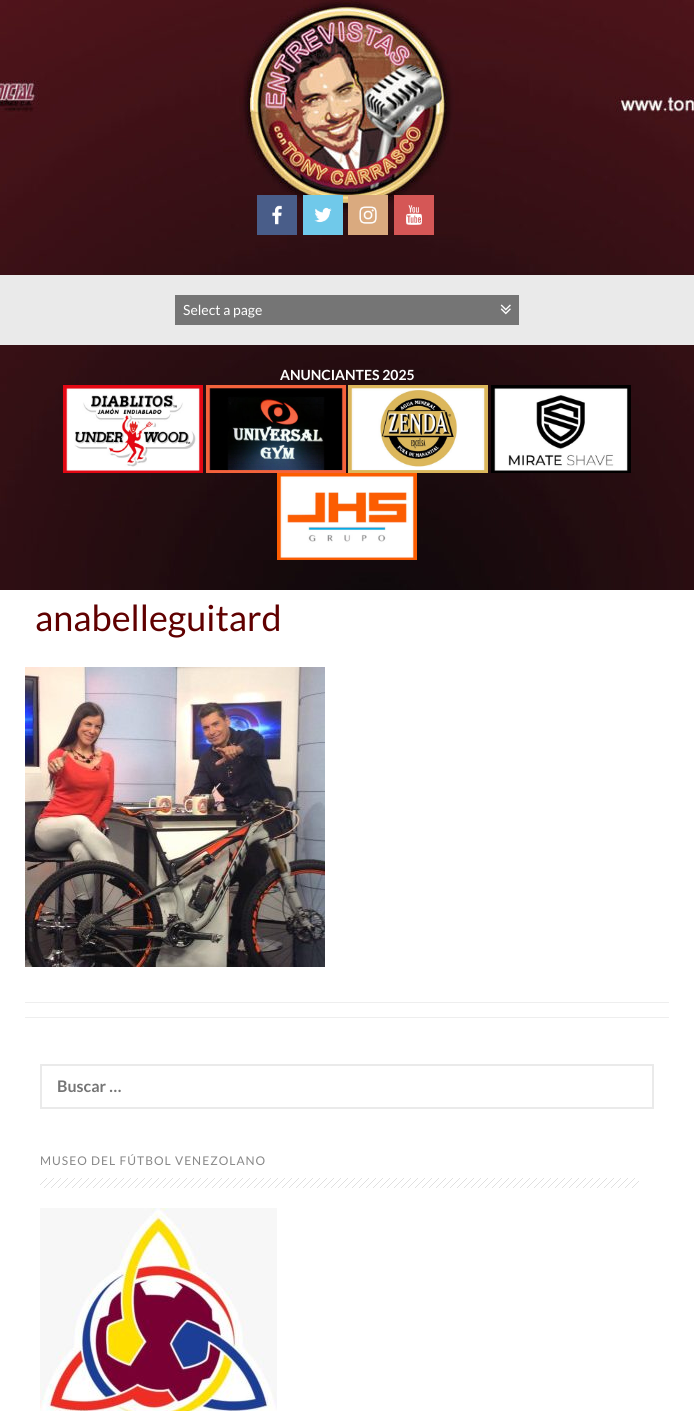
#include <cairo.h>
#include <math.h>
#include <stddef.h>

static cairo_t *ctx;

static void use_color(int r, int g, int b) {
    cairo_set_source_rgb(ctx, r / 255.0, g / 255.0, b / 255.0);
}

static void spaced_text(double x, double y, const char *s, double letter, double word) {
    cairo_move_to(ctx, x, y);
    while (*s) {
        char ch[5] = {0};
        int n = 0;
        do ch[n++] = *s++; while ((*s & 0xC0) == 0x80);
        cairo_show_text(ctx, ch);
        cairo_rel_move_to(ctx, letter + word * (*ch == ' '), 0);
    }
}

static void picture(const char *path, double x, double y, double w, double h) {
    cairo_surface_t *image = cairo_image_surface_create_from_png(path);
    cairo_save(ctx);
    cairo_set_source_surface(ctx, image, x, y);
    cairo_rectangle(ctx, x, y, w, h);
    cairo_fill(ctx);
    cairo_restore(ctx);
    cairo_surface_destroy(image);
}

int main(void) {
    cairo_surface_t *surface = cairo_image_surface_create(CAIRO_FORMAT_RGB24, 694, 1411);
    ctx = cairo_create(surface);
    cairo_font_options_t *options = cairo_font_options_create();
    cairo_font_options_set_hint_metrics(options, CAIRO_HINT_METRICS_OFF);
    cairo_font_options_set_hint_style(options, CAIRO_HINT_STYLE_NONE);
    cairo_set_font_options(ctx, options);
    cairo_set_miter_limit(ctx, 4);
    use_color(255, 255, 255);
    cairo_paint(ctx);
    picture("img1.png", 0, 0, 694, 590);
    picture("img2.png", 257, 195, 40, 40);
    picture("img3.png", 303, 195, 40, 40);
    picture("img4.png", 348, 195, 40, 40);
    picture("img5.png", 394, 195, 40, 40);
    use_color(234, 234, 234);
    cairo_rectangle(ctx, 0, 275, 694, 70);
    cairo_fill(ctx);
    use_color(117, 117, 117);
    cairo_rectangle(ctx, 175, 295, 344, 30);
    cairo_fill(ctx);
    cairo_select_font_face(ctx, "Lato", CAIRO_FONT_SLANT_NORMAL, CAIRO_FONT_WEIGHT_NORMAL);
    cairo_set_font_size(ctx, 14);
    use_color(255, 255, 255);
    cairo_move_to(ctx, 183, 315);
    cairo_show_text(ctx, "Select a page");
    picture("img6.png", 500, 304, 11, 11);
    cairo_select_font_face(ctx, "Lato", CAIRO_FONT_SLANT_NORMAL, CAIRO_FONT_WEIGHT_BOLD);
    cairo_move_to(ctx, 280, 380);
    cairo_show_text(ctx, "ANUNCIANTES 2025");
    picture("img7.png", 63, 385, 140, 88);
    picture("img8.png", 206, 385, 140, 88);
    picture("img9.png", 348, 385, 140, 88);
    picture("img10.png", 491, 385, 140, 88);
    picture("img11.png", 277, 473, 140, 87);
    cairo_select_font_face(ctx, "Lato", CAIRO_FONT_SLANT_NORMAL, CAIRO_FONT_WEIGHT_NORMAL);
    cairo_set_font_size(ctx, 36);
    use_color(96, 0, 0);
    cairo_move_to(ctx, 35, 631);
    cairo_show_text(ctx, "anabelleguitard");
    picture("img12.png", 25, 667, 300, 300);
    use_color(238, 238, 238);
    cairo_rectangle(ctx, 25, 1002, 644, 1);
    cairo_fill(ctx);
    cairo_rectangle(ctx, 25, 1017, 644, 1);
    cairo_fill(ctx);
    cairo_rectangle(ctx, 41, 1065, 612, 43);
    use_color(234, 234, 234);
    cairo_stroke(ctx);
    cairo_select_font_face(ctx, "Lato", CAIRO_FONT_SLANT_NORMAL, CAIRO_FONT_WEIGHT_BOLD);
    cairo_set_font_size(ctx, 16);
    use_color(117, 117, 117);
    cairo_move_to(ctx, 57, 1092);
    cairo_show_text(ctx, "Buscar …");
    cairo_select_font_face(ctx, "Lato", CAIRO_FONT_SLANT_NORMAL, CAIRO_FONT_WEIGHT_NORMAL);
    cairo_set_font_size(ctx, 12);
    use_color(136, 136, 136);
    spaced_text(40, 1165, "MUSEO DEL FÚTBOL VENEZOLANO", 1, 0);
    picture("img13.png", 40, 1178, 599, 10);
    picture("img14.png", 40, 1208, 237, 203);
    cairo_surface_write_to_png(surface, "result.png");
    cairo_font_options_destroy(options);
    cairo_destroy(ctx);
    cairo_surface_destroy(surface);
    return 0;
}
